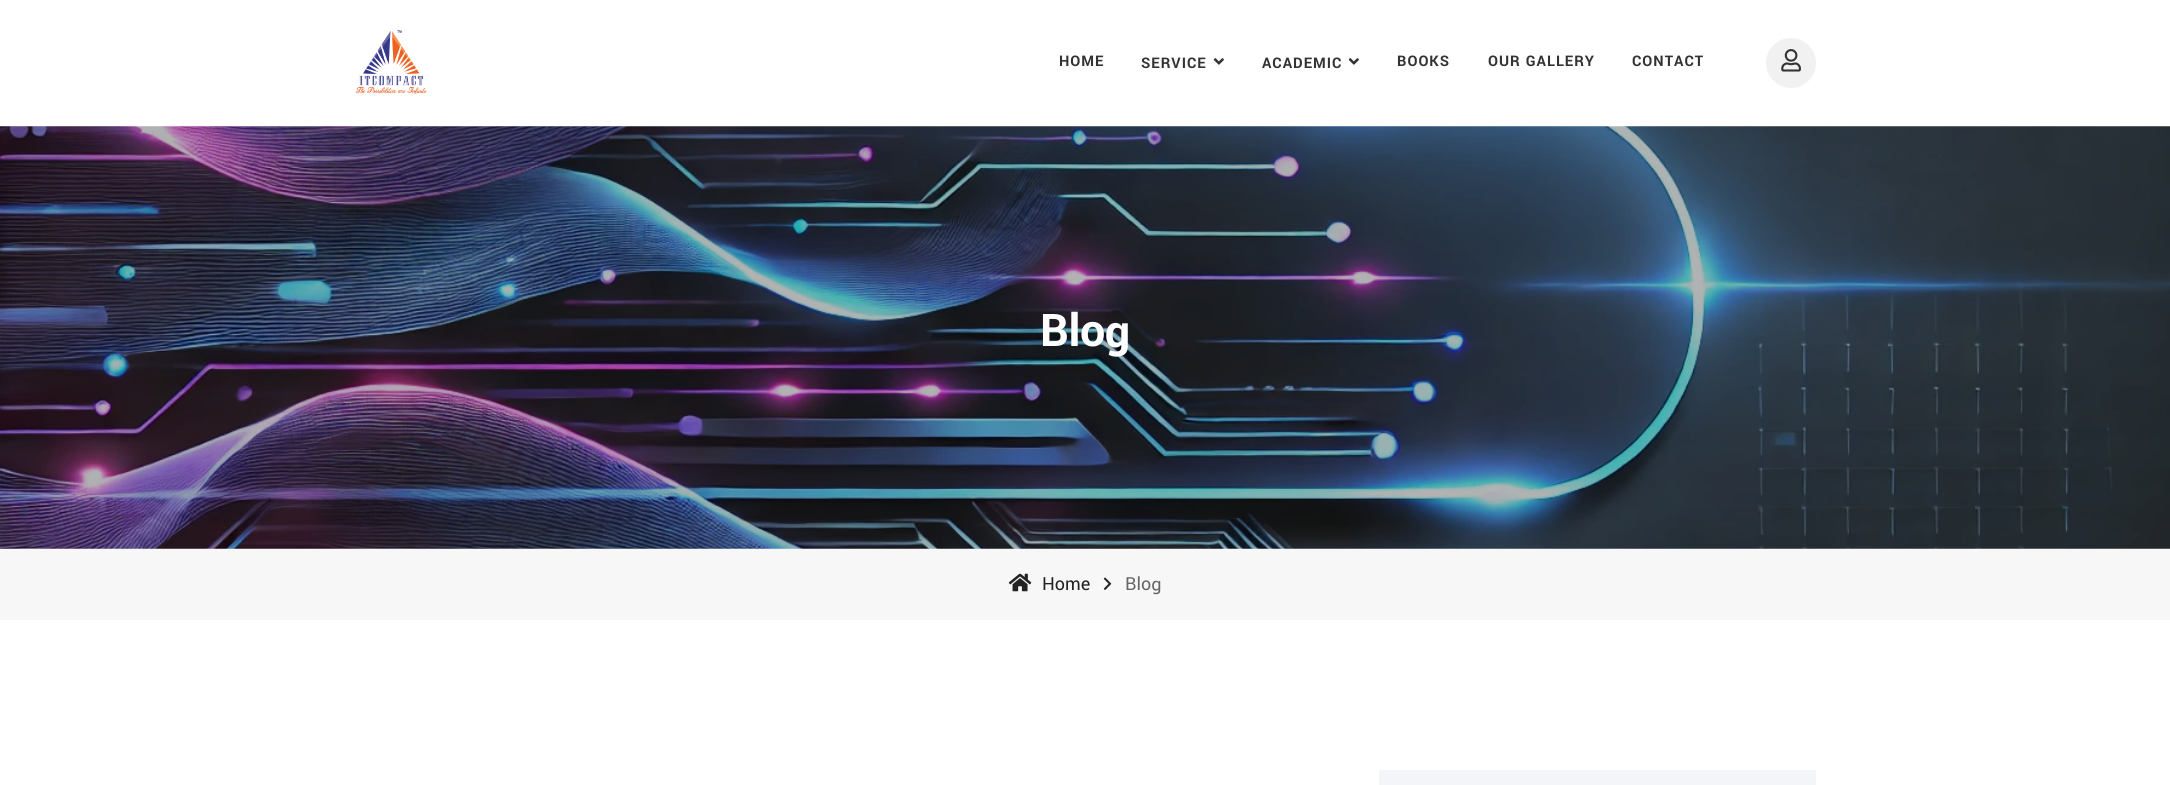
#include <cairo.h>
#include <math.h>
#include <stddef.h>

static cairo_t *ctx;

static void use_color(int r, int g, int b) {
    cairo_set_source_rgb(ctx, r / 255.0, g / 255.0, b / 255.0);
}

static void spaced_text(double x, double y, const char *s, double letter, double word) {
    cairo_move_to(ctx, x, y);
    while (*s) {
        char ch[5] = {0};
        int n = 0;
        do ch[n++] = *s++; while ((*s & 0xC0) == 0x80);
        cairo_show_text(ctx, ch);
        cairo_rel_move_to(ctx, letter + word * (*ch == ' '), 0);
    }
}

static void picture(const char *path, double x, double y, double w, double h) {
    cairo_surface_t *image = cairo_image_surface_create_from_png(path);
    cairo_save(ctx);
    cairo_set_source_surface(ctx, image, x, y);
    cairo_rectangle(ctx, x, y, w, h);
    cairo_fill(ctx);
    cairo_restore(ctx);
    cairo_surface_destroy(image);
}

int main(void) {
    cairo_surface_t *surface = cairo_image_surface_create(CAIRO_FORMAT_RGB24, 2170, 785);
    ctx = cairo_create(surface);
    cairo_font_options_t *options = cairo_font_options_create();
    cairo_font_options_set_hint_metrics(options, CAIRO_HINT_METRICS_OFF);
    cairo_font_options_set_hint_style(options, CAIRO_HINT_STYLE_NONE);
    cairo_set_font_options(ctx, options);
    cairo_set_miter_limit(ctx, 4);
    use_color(255, 255, 255);
    cairo_paint(ctx);
    picture("img1.png", 356, 30, 71, 65);
    cairo_select_font_face(ctx, "Yantramanav", CAIRO_FONT_SLANT_NORMAL, CAIRO_FONT_WEIGHT_BOLD);
    cairo_set_font_size(ctx, 16.25);
    use_color(51, 51, 51);
    spaced_text(1059, 66, "HOME", 1, 0);
    spaced_text(1141, 68, "SERVICE", 1, 0);
    picture("img2.png", 1213, 58, 11, 7);
    spaced_text(1262, 68, "ACADEMIC", 1, 0);
    picture("img2.png", 1348, 58, 11, 7);
    spaced_text(1397, 66, "BOOKS", 1, 0);
    spaced_text(1488, 66, "OUR GALLERY", 1, 0);
    spaced_text(1632, 66, "CONTACT", 1, 0);
    use_color(241, 241, 241);
    cairo_new_path(ctx);
    cairo_arc(ctx, 1791, 63, 25, 0, 2 * M_PI);
    cairo_fill(ctx);
    picture("img3.png", 1781, 49, 20, 23);
    picture("img4.png", 0, 126, 2170, 423);
    cairo_set_font_size(ctx, 50);
    use_color(255, 255, 255);
    spaced_text(1040, 346, "Blog", -0.5, 0);
    use_color(247, 247, 247);
    cairo_rectangle(ctx, 0, 549, 2170, 71);
    cairo_fill(ctx);
    picture("img5.png", 1008, 573, 24, 19);
    cairo_select_font_face(ctx, "Yantramanav", CAIRO_FONT_SLANT_NORMAL, CAIRO_FONT_WEIGHT_NORMAL);
    cairo_set_font_size(ctx, 20);
    use_color(35, 35, 35);
    cairo_move_to(ctx, 1042, 590);
    cairo_show_text(ctx, "Home");
    picture("img6.png", 1103, 577, 9, 13);
    use_color(102, 102, 102);
    cairo_move_to(ctx, 1125, 590);
    cairo_show_text(ctx, "Blog");
    use_color(244, 245, 248);
    cairo_rectangle(ctx, 1379, 770, 437, 15);
    cairo_fill(ctx);
    cairo_surface_write_to_png(surface, "result.png");
    cairo_font_options_destroy(options);
    cairo_destroy(ctx);
    cairo_surface_destroy(surface);
    return 0;
}
